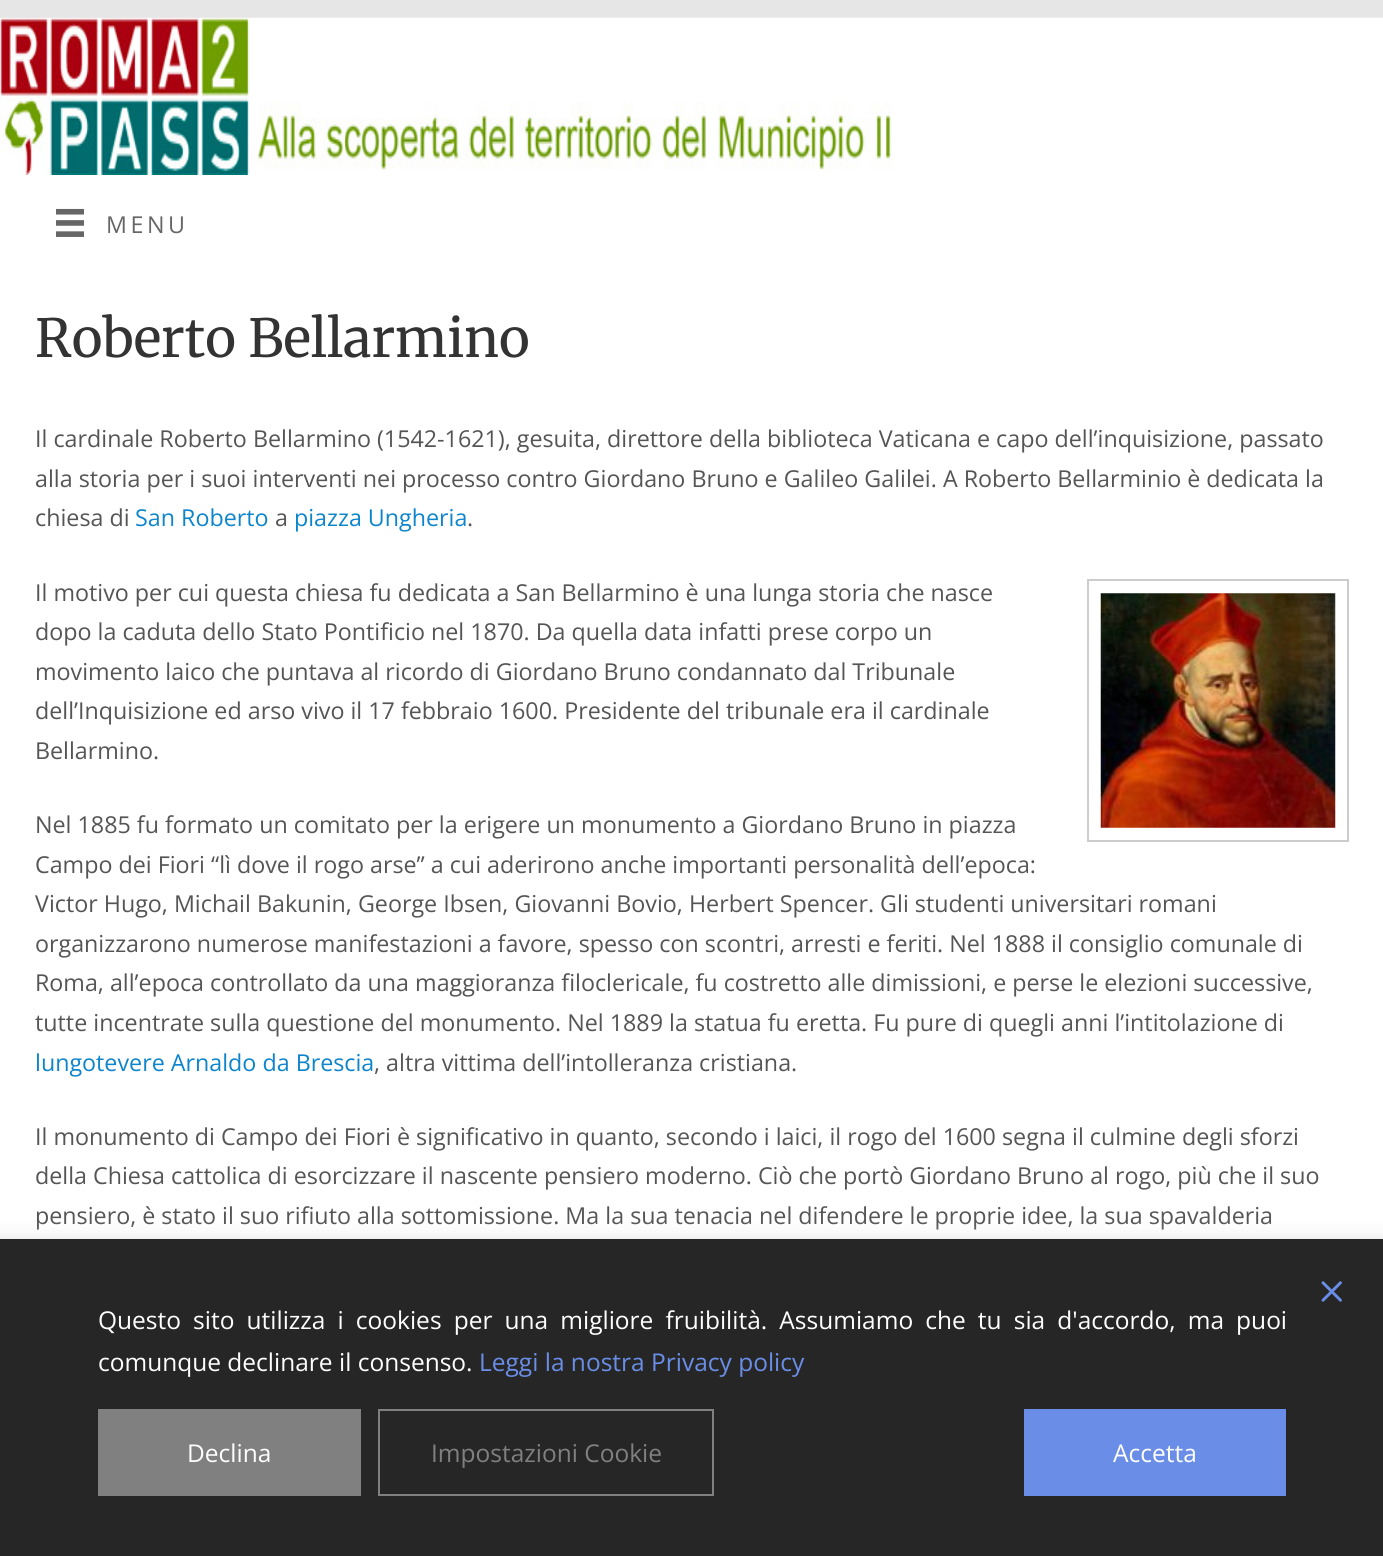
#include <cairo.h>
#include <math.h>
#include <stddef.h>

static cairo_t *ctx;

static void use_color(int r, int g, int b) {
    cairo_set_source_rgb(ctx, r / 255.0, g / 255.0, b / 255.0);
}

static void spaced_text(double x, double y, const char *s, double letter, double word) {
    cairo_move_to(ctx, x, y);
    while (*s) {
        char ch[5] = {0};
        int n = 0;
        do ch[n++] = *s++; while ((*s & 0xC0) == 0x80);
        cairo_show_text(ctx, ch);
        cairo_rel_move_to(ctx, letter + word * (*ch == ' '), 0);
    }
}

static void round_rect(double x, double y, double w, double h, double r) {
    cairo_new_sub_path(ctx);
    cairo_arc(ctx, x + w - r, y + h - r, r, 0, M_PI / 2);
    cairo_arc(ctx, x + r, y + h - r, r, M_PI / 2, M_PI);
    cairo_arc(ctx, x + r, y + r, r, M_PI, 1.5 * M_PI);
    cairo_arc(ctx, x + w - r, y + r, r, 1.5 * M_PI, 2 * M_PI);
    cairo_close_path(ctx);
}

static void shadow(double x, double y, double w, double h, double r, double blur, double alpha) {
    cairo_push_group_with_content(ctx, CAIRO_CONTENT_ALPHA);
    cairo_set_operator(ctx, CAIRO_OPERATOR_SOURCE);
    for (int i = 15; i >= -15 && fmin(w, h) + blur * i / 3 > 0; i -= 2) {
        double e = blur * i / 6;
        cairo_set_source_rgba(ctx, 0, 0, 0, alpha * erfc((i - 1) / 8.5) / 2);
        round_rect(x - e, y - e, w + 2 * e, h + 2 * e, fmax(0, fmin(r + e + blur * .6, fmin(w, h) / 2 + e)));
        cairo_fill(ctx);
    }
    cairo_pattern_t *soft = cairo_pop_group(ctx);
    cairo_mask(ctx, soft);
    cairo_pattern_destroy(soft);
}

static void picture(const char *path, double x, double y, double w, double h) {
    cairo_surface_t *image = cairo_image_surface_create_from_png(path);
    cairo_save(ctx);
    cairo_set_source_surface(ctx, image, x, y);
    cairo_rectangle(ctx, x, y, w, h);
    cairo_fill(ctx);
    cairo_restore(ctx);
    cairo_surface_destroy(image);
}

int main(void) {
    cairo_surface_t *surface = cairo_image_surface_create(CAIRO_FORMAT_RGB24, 1383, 1556);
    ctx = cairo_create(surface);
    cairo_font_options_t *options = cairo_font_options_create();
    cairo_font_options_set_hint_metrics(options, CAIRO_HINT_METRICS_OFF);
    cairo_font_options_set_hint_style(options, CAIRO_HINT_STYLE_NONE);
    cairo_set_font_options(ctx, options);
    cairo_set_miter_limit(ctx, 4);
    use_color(230, 230, 230);
    cairo_paint(ctx);
    picture("img1.png", 0, 17, 1383, 158);
    use_color(255, 255, 255);
    cairo_rectangle(ctx, 0, 175, 1383, 1064);
    cairo_fill(ctx);
    picture("img2.png", 56, 208, 28, 29);
    cairo_select_font_face(ctx, "Open Sans", CAIRO_FONT_SLANT_NORMAL, CAIRO_FONT_WEIGHT_NORMAL);
    cairo_set_font_size(ctx, 23.28);
    use_color(102, 102, 102);
    spaced_text(106, 233, "MENU", 3.5, 0);
    cairo_select_font_face(ctx, "Merriweather", CAIRO_FONT_SLANT_NORMAL, CAIRO_FONT_WEIGHT_NORMAL);
    cairo_set_font_size(ctx, 52.5);
    use_color(51, 51, 51);
    cairo_move_to(ctx, 35, 357);
    cairo_show_text(ctx, "Roberto Bellarmino");
    cairo_select_font_face(ctx, "Open Sans", CAIRO_FONT_SLANT_NORMAL, CAIRO_FONT_WEIGHT_NORMAL);
    cairo_set_font_size(ctx, 23.28);
    use_color(85, 85, 85);
    cairo_move_to(ctx, 35, 447);
    cairo_show_text(ctx, "Il cardinale Roberto Bellarmino (1542-1621), gesuita, direttore della biblioteca Vaticana e capo dell’inquisizione, passato");
    cairo_move_to(ctx, 35, 487);
    cairo_show_text(ctx, "alla storia per i suoi interventi nei processo contro Giordano Bruno e Galileo Galilei. A Roberto Bellarminio è dedicata la");
    cairo_move_to(ctx, 35, 526);
    cairo_show_text(ctx, "chiesa di");
    use_color(13, 133, 204);
    cairo_move_to(ctx, 135, 526);
    cairo_show_text(ctx, "San Roberto");
    use_color(85, 85, 85);
    cairo_move_to(ctx, 275, 526);
    cairo_show_text(ctx, "a");
    use_color(13, 133, 204);
    cairo_move_to(ctx, 294, 526);
    cairo_show_text(ctx, "piazza Ungheria");
    use_color(85, 85, 85);
    cairo_move_to(ctx, 467, 526);
    cairo_show_text(ctx, ".");
    cairo_move_to(ctx, 35, 601);
    cairo_show_text(ctx, "Il motivo per cui questa chiesa fu dedicata a San Bellarmino è una lunga storia che nasce");
    cairo_rectangle(ctx, 1088, 580, 260, 261);
    use_color(204, 204, 204);
    cairo_stroke(ctx);
    picture("img3.png", 1100, 593, 236, 235);
    use_color(85, 85, 85);
    cairo_move_to(ctx, 35, 640);
    cairo_show_text(ctx, "dopo la caduta dello Stato Pontificio nel 1870. Da quella data infatti prese corpo un");
    cairo_move_to(ctx, 35, 680);
    cairo_show_text(ctx, "movimento laico che puntava al ricordo di Giordano Bruno condannato dal Tribunale");
    cairo_move_to(ctx, 35, 719);
    cairo_show_text(ctx, "dell’Inquisizione ed arso vivo il 17 febbraio 1600. Presidente del tribunale era il cardinale");
    cairo_move_to(ctx, 35, 759);
    cairo_show_text(ctx, "Bellarmino.");
    cairo_move_to(ctx, 35, 833);
    cairo_show_text(ctx, "Nel 1885 fu formato un comitato per la erigere un monumento a Giordano Bruno in piazza");
    cairo_move_to(ctx, 35, 873);
    cairo_show_text(ctx, "Campo dei Fiori “lì dove il rogo arse” a cui aderirono anche importanti personalità dell’epoca:");
    cairo_move_to(ctx, 35, 912);
    cairo_show_text(ctx, "Victor Hugo, Michail Bakunin, George Ibsen, Giovanni Bovio, Herbert Spencer. Gli studenti universitari romani");
    cairo_move_to(ctx, 35, 952);
    cairo_show_text(ctx, "organizzarono numerose manifestazioni a favore, spesso con scontri, arresti e feriti. Nel 1888 il consiglio comunale di");
    cairo_move_to(ctx, 35, 991);
    cairo_show_text(ctx, "Roma, all’epoca controllato da una maggioranza filoclericale, fu costretto alle dimissioni, e perse le elezioni successive,");
    cairo_move_to(ctx, 35, 1031);
    cairo_show_text(ctx, "tutte incentrate sulla questione del monumento. Nel 1889 la statua fu eretta. Fu pure di quegli anni l’intitolazione di");
    use_color(13, 133, 204);
    cairo_move_to(ctx, 35, 1071);
    cairo_show_text(ctx, "lungotevere Arnaldo da Brescia");
    use_color(85, 85, 85);
    cairo_move_to(ctx, 374, 1071);
    cairo_show_text(ctx, ", altra vittima dell’intolleranza cristiana.");
    cairo_move_to(ctx, 35, 1145);
    cairo_show_text(ctx, "Il monumento di Campo dei Fiori è significativo in quanto, secondo i laici, il rogo del 1600 segna il culmine degli sforzi");
    cairo_move_to(ctx, 35, 1184);
    cairo_show_text(ctx, "della Chiesa cattolica di esorcizzare il nascente pensiero moderno. Ciò che portò Giordano Bruno al rogo, più che il suo");
    cairo_move_to(ctx, 35, 1224);
    cairo_show_text(ctx, "pensiero, è stato il suo rifiuto alla sottomissione. Ma la sua tenacia nel difendere le proprie idee, la sua spavalderia");
    use_color(221, 221, 221);
    shadow(-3, 1241, 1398, 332, 0, 9.5, 1);
    use_color(38, 38, 38);
    cairo_rectangle(ctx, 0, 1239, 1383, 317);
    cairo_fill(ctx);
    picture("img4.png", 1321, 1281, 21, 21);
    cairo_set_font_size(ctx, 24.5);
    use_color(255, 255, 255);
    spaced_text(98, 1329, "Questo sito utilizza i cookies per una migliore fruibilità. Assumiamo che tu sia d'accordo, ma puoi", 0, 5.75);
    cairo_move_to(ctx, 98, 1371);
    cairo_show_text(ctx, "comunque declinare il consenso.");
    use_color(106, 142, 231);
    cairo_move_to(ctx, 479, 1371);
    cairo_show_text(ctx, "Leggi la nostra Privacy policy");
    use_color(128, 128, 128);
    cairo_rectangle(ctx, 98, 1409, 263, 87);
    cairo_fill(ctx);
    use_color(255, 255, 255);
    cairo_move_to(ctx, 187, 1462);
    cairo_show_text(ctx, "Declina");
    cairo_rectangle(ctx, 379, 1410, 334, 85);
    use_color(128, 128, 128);
    cairo_stroke(ctx);
    cairo_move_to(ctx, 431, 1462);
    cairo_show_text(ctx, "Impostazioni Cookie");
    use_color(106, 142, 231);
    cairo_rectangle(ctx, 1024, 1409, 262, 87);
    cairo_fill(ctx);
    use_color(255, 255, 255);
    cairo_move_to(ctx, 1113, 1462);
    cairo_show_text(ctx, "Accetta");
    cairo_surface_write_to_png(surface, "result.png");
    cairo_font_options_destroy(options);
    cairo_destroy(ctx);
    cairo_surface_destroy(surface);
    return 0;
}
